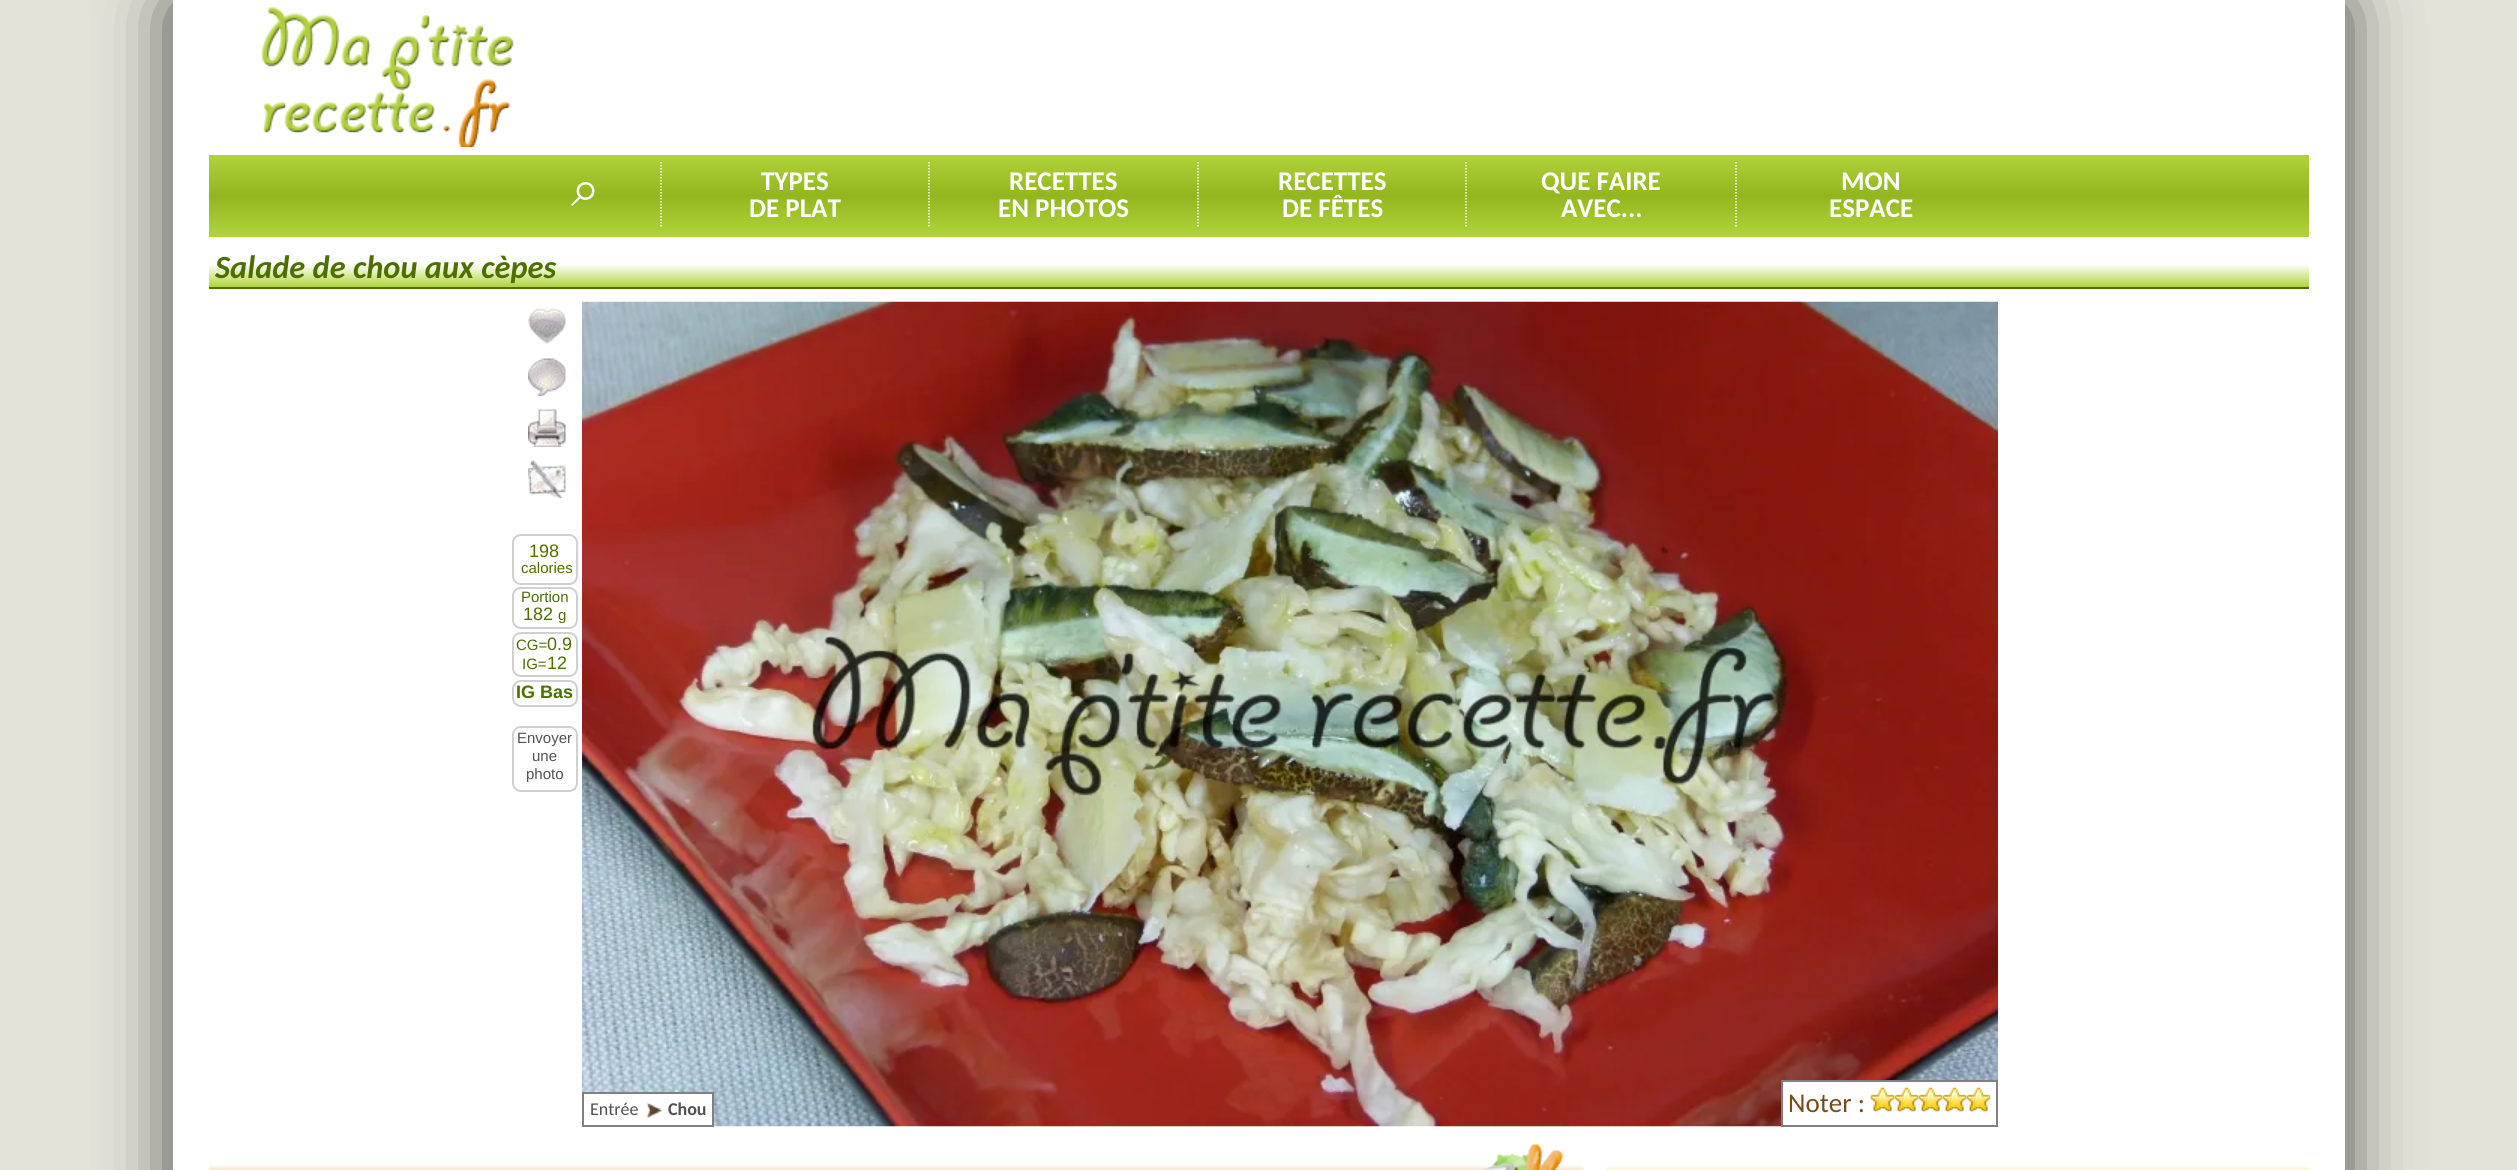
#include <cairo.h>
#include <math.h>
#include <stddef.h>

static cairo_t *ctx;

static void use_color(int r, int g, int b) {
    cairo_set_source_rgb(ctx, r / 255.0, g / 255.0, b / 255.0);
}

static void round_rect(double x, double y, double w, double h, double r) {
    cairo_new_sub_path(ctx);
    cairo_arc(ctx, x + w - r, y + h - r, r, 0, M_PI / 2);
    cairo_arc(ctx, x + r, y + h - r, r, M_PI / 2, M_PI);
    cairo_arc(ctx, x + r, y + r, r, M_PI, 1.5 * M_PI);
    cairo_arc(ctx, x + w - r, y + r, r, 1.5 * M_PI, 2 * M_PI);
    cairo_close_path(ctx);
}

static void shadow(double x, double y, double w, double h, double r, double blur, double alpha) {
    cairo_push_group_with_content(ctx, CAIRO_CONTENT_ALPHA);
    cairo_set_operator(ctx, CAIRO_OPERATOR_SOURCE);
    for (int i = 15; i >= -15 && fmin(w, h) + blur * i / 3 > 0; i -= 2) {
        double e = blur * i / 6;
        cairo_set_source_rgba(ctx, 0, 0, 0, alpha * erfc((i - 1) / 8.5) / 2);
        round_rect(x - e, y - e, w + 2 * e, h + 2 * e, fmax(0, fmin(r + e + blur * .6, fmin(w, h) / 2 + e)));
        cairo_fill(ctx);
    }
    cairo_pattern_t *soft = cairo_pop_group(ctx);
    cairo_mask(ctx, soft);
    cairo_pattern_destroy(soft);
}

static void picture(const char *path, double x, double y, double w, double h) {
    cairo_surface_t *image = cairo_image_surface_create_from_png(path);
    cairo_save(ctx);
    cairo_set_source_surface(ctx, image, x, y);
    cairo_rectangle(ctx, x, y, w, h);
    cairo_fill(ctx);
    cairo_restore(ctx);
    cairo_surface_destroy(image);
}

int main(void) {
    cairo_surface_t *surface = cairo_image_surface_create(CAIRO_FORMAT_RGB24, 2517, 1170);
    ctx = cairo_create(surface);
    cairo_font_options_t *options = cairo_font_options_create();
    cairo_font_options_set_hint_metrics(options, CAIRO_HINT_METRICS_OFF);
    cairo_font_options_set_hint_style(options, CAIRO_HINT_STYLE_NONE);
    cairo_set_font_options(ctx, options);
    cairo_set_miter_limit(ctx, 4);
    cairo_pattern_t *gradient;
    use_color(226, 226, 217);
    cairo_paint(ctx);
    use_color(0, 0, 0);
    shadow(180, 8, 2157, 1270, 0, 36, 0.85);
    use_color(255, 255, 255);
    cairo_rectangle(ctx, 173, 0, 2172, 1170);
    cairo_fill(ctx);
    picture("img1.png", 260, 7, 254, 140);
    gradient = cairo_pattern_create_linear(1259, 154, 1259, 237);
    cairo_pattern_add_color_stop_rgba(gradient, 0, 0.694, 0.831, 0.235, 1);
    cairo_pattern_add_color_stop_rgba(gradient, 0.5, 0.576, 0.714, 0.118, 1);
    cairo_pattern_add_color_stop_rgba(gradient, 1, 0.694, 0.831, 0.235, 1);
    cairo_set_source(ctx, gradient);
    cairo_pattern_destroy(gradient);
    cairo_rectangle(ctx, 209, 155, 2100, 82);
    cairo_fill(ctx);
    cairo_new_path(ctx);
    cairo_move_to(ctx, 661, 162);
    cairo_line_to(ctx, 661, 226.5);
    use_color(255, 255, 255);
    cairo_set_line_width(ctx, 1.5);
    cairo_set_dash(ctx, (double[]){1.5, 1.5}, 2, 0);
    cairo_stroke(ctx);
    cairo_select_font_face(ctx, "FreeSerif", CAIRO_FONT_SLANT_NORMAL, CAIRO_FONT_WEIGHT_NORMAL);
    cairo_set_font_size(ctx, 52);
    cairo_move_to(ctx, 571, 206);
    cairo_show_text(ctx, "⌕");
    cairo_new_path(ctx);
    cairo_move_to(ctx, 929, 162);
    cairo_line_to(ctx, 929, 226.5);
    cairo_stroke(ctx);
    cairo_select_font_face(ctx, "Carlito", CAIRO_FONT_SLANT_NORMAL, CAIRO_FONT_WEIGHT_BOLD);
    cairo_set_font_size(ctx, 27);
    cairo_move_to(ctx, 761, 190);
    cairo_show_text(ctx, "TYPES");
    cairo_move_to(ctx, 749, 217);
    cairo_show_text(ctx, "DE PLAT");
    cairo_new_path(ctx);
    cairo_move_to(ctx, 1198, 162);
    cairo_line_to(ctx, 1198, 226.5);
    cairo_stroke(ctx);
    cairo_move_to(ctx, 1009, 190);
    cairo_show_text(ctx, "RECETTES");
    cairo_move_to(ctx, 998, 217);
    cairo_show_text(ctx, "EN PHOTOS");
    cairo_new_path(ctx);
    cairo_move_to(ctx, 1466, 162);
    cairo_line_to(ctx, 1466, 226.5);
    cairo_stroke(ctx);
    cairo_move_to(ctx, 1278, 190);
    cairo_show_text(ctx, "RECETTES");
    cairo_move_to(ctx, 1282, 217);
    cairo_show_text(ctx, "DE FÊTES");
    cairo_new_path(ctx);
    cairo_move_to(ctx, 1736, 162);
    cairo_line_to(ctx, 1736, 226.5);
    cairo_stroke(ctx);
    cairo_move_to(ctx, 1541, 190);
    cairo_show_text(ctx, "QUE FAIRE");
    cairo_move_to(ctx, 1561, 217);
    cairo_show_text(ctx, "AVEC...");
    cairo_move_to(ctx, 1841, 190);
    cairo_show_text(ctx, "MON");
    cairo_move_to(ctx, 1829, 217);
    cairo_show_text(ctx, "ESPACE");
    gradient = cairo_pattern_create_linear(1259, 241, 1259, 287);
    cairo_pattern_add_color_stop_rgba(gradient, 0, 1, 1, 1, 1);
    cairo_pattern_add_color_stop_rgba(gradient, 0.5, 1, 1, 1, 1);
    cairo_pattern_add_color_stop_rgba(gradient, 1, 0.694, 0.831, 0.235, 1);
    cairo_set_source(ctx, gradient);
    cairo_pattern_destroy(gradient);
    cairo_rectangle(ctx, 209, 264, 2100, 23);
    cairo_fill(ctx);
    use_color(76, 111, 0);
    cairo_rectangle(ctx, 209, 287, 2100, 2);
    cairo_fill(ctx);
    cairo_select_font_face(ctx, "Carlito", CAIRO_FONT_SLANT_ITALIC, CAIRO_FONT_WEIGHT_BOLD);
    cairo_set_font_size(ctx, 32.4);
    cairo_move_to(ctx, 215, 278);
    cairo_show_text(ctx, "Salade de chou aux cèpes");
    picture("img2.png", 528, 307, 38, 37);
    picture("img3.png", 528, 358, 38, 38);
    picture("img4.png", 528, 409, 38, 38);
    picture("img5.png", 528, 460, 38, 38);
    round_rect(513, 535, 64, 49, 8);
    use_color(208, 208, 208);
    cairo_set_line_width(ctx, 2);
    cairo_set_dash(ctx, NULL, 0, 0);
    cairo_stroke(ctx);
    cairo_select_font_face(ctx, "Liberation Sans", CAIRO_FONT_SLANT_NORMAL, CAIRO_FONT_WEIGHT_NORMAL);
    cairo_set_font_size(ctx, 18);
    use_color(76, 111, 0);
    cairo_move_to(ctx, 529, 557);
    cairo_show_text(ctx, "198");
    cairo_set_font_size(ctx, 15);
    cairo_move_to(ctx, 521, 573);
    cairo_show_text(ctx, "calories");
    round_rect(513, 588, 64, 40, 8);
    use_color(208, 208, 208);
    cairo_stroke(ctx);
    use_color(76, 111, 0);
    cairo_move_to(ctx, 521, 602);
    cairo_show_text(ctx, "Portion");
    cairo_set_font_size(ctx, 18);
    cairo_move_to(ctx, 523, 620);
    cairo_show_text(ctx, "182");
    cairo_set_font_size(ctx, 15);
    cairo_move_to(ctx, 558, 620);
    cairo_show_text(ctx, "g");
    round_rect(513, 633, 64, 43, 8);
    use_color(208, 208, 208);
    cairo_stroke(ctx);
    use_color(76, 111, 0);
    cairo_move_to(ctx, 516, 650);
    cairo_show_text(ctx, "CG=");
    cairo_set_font_size(ctx, 18);
    cairo_move_to(ctx, 547, 650);
    cairo_show_text(ctx, "0.9");
    cairo_set_font_size(ctx, 15);
    cairo_move_to(ctx, 522, 669);
    cairo_show_text(ctx, "IG=");
    cairo_set_font_size(ctx, 18);
    cairo_move_to(ctx, 547, 669);
    cairo_show_text(ctx, "12");
    round_rect(513, 681, 64, 25, 8);
    use_color(208, 208, 208);
    cairo_stroke(ctx);
    cairo_select_font_face(ctx, "Liberation Sans", CAIRO_FONT_SLANT_NORMAL, CAIRO_FONT_WEIGHT_BOLD);
    use_color(76, 111, 0);
    cairo_move_to(ctx, 516, 698);
    cairo_show_text(ctx, "IG Bas");
    round_rect(513, 727, 64, 64, 8);
    use_color(208, 208, 208);
    cairo_stroke(ctx);
    cairo_select_font_face(ctx, "Liberation Sans", CAIRO_FONT_SLANT_NORMAL, CAIRO_FONT_WEIGHT_NORMAL);
    cairo_set_font_size(ctx, 15);
    use_color(81, 81, 81);
    cairo_move_to(ctx, 517, 743);
    cairo_show_text(ctx, "Envoyer");
    cairo_move_to(ctx, 532, 761);
    cairo_show_text(ctx, "une");
    cairo_move_to(ctx, 526, 779);
    cairo_show_text(ctx, "photo");
    picture("img6.png", 582, 301, 1416, 826);
    use_color(255, 255, 255);
    cairo_rectangle(ctx, 583, 1093, 130, 33);
    cairo_fill_preserve(ctx);
    use_color(128, 128, 128);
    cairo_stroke(ctx);
    cairo_select_font_face(ctx, "Carlito", CAIRO_FONT_SLANT_NORMAL, CAIRO_FONT_WEIGHT_NORMAL);
    cairo_set_font_size(ctx, 18);
    use_color(81, 81, 81);
    cairo_move_to(ctx, 590, 1115);
    cairo_show_text(ctx, "Entrée");
    picture("img7.png", 646, 1102, 17, 16);
    cairo_select_font_face(ctx, "Carlito", CAIRO_FONT_SLANT_NORMAL, CAIRO_FONT_WEIGHT_BOLD);
    cairo_move_to(ctx, 668, 1115);
    cairo_show_text(ctx, "Chou");
    use_color(255, 255, 255);
    cairo_rectangle(ctx, 1782, 1081, 215, 45);
    cairo_fill_preserve(ctx);
    use_color(128, 128, 128);
    cairo_stroke(ctx);
    cairo_select_font_face(ctx, "Carlito", CAIRO_FONT_SLANT_NORMAL, CAIRO_FONT_WEIGHT_NORMAL);
    cairo_set_font_size(ctx, 27);
    use_color(120, 76, 26);
    cairo_move_to(ctx, 1788, 1112);
    cairo_show_text(ctx, "Noter :");
    picture("img8.png", 1870, 1087, 25, 25);
    picture("img9.png", 1894, 1087, 25, 25);
    picture("img9.png", 1918, 1087, 25, 25);
    picture("img9.png", 1942, 1087, 25, 25);
    picture("img9.png", 1966, 1087, 25, 25);
    gradient = cairo_pattern_create_linear(896, 1143, 896, 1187);
    cairo_pattern_add_color_stop_rgba(gradient, 0, 1, 1, 1, 1);
    cairo_pattern_add_color_stop_rgba(gradient, 0.5, 1, 1, 1, 1);
    cairo_pattern_add_color_stop_rgba(gradient, 1, 0.965, 0.565, 0.063, 1);
    cairo_set_source(ctx, gradient);
    cairo_pattern_destroy(gradient);
    cairo_rectangle(ctx, 209, 1165, 1374, 5);
    cairo_fill(ctx);
    picture("img10.png", 1481, 1144, 83, 26);
    gradient = cairo_pattern_create_linear(1958, 1143, 1958, 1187);
    cairo_pattern_add_color_stop_rgba(gradient, 0, 1, 1, 1, 1);
    cairo_pattern_add_color_stop_rgba(gradient, 0.5, 1, 1, 1, 1);
    cairo_pattern_add_color_stop_rgba(gradient, 1, 0.941, 0.804, 0.129, 1);
    cairo_set_source(ctx, gradient);
    cairo_pattern_destroy(gradient);
    cairo_rectangle(ctx, 1607, 1165, 702, 5);
    cairo_fill(ctx);
    cairo_surface_write_to_png(surface, "result.png");
    cairo_font_options_destroy(options);
    cairo_destroy(ctx);
    cairo_surface_destroy(surface);
    return 0;
}
